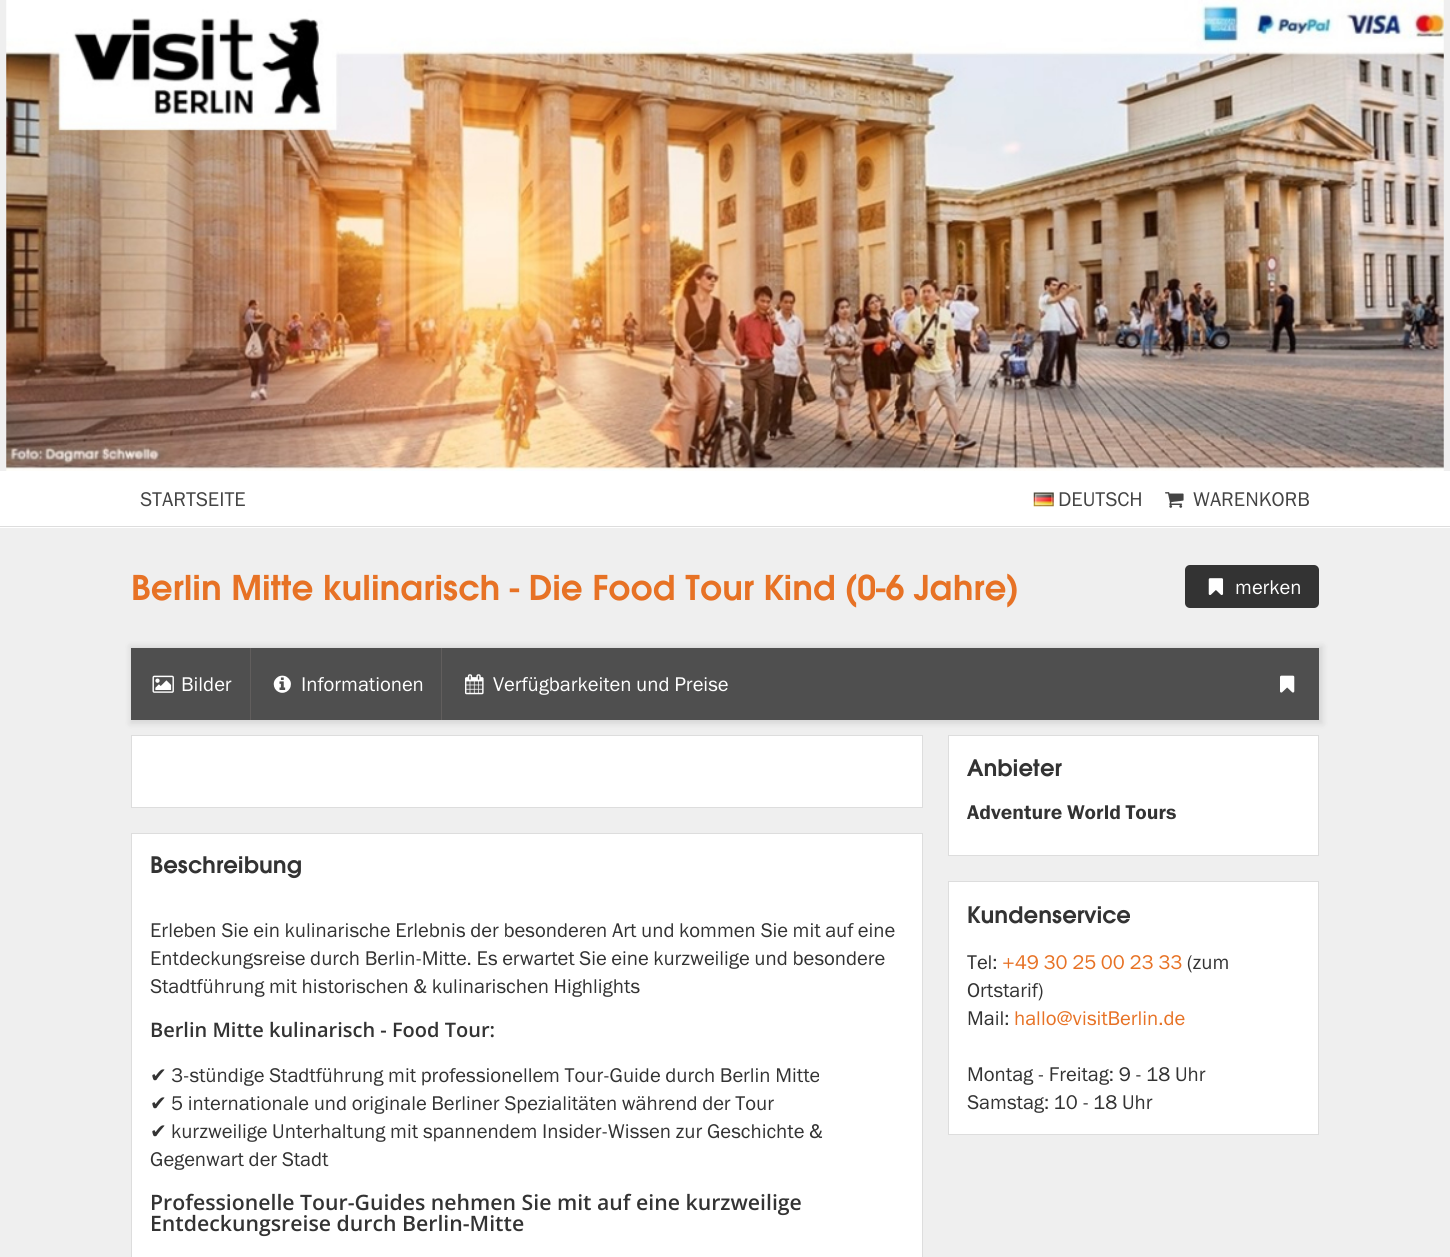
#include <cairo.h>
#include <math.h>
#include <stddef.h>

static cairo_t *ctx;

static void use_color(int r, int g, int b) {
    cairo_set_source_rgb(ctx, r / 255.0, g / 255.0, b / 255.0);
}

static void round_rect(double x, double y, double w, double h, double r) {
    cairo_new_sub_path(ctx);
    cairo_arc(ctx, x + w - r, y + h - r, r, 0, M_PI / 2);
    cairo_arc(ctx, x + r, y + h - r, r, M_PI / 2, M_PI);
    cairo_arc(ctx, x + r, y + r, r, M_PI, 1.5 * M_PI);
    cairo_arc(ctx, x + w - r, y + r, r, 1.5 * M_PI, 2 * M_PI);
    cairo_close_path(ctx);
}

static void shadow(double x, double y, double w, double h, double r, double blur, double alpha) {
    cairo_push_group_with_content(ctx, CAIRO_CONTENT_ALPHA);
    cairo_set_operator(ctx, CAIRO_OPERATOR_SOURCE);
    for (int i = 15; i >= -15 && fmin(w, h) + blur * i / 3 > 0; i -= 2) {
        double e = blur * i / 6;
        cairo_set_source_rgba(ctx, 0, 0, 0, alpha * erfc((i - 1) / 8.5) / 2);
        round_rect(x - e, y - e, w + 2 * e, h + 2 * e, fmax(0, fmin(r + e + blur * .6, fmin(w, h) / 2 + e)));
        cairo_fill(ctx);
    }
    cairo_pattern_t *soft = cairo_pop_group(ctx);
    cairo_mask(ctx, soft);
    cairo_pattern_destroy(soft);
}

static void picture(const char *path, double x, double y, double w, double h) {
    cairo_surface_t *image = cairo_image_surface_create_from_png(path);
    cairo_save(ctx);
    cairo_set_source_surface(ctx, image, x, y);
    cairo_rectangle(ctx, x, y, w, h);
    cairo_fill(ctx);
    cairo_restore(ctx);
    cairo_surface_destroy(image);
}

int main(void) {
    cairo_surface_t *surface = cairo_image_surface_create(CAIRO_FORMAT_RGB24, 1450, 1257);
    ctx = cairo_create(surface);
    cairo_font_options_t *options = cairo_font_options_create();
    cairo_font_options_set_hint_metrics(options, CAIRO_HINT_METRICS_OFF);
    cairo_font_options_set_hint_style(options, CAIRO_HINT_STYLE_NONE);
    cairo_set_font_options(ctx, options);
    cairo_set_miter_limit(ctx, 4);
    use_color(239, 239, 239);
    cairo_paint(ctx);
    picture("img1.png", 6, 0, 1438, 471);
    use_color(255, 255, 255);
    cairo_rectangle(ctx, 0, 471, 1450, 57);
    cairo_fill(ctx);
    use_color(221, 221, 221);
    cairo_rectangle(ctx, 0, 526, 1450, 1);
    cairo_fill(ctx);
    cairo_select_font_face(ctx, "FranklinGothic", CAIRO_FONT_SLANT_NORMAL, CAIRO_FONT_WEIGHT_NORMAL);
    cairo_set_font_size(ctx, 20);
    use_color(68, 68, 68);
    cairo_move_to(ctx, 140, 506);
    cairo_show_text(ctx, "STARTSEITE");
    picture("img2.png", 1033, 492, 21, 15);
    cairo_move_to(ctx, 1058, 506);
    cairo_show_text(ctx, "DEUTSCH");
    picture("img3.png", 1165, 492, 19, 16);
    cairo_move_to(ctx, 1193, 506);
    cairo_show_text(ctx, "WARENKORB");
    cairo_select_font_face(ctx, "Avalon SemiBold", CAIRO_FONT_SLANT_NORMAL, CAIRO_FONT_WEIGHT_NORMAL);
    cairo_set_font_size(ctx, 37.5);
    use_color(231, 114, 37);
    cairo_move_to(ctx, 131, 600);
    cairo_show_text(ctx, "Berlin Mitte kulinarisch - Die Food Tour Kind (0-6 Jahre)");
    use_color(51, 51, 51);
    round_rect(1185, 565, 134, 43, 5);
    cairo_fill(ctx);
    picture("img4.png", 1208, 578, 16, 17);
    cairo_select_font_face(ctx, "FranklinGothic", CAIRO_FONT_SLANT_NORMAL, CAIRO_FONT_WEIGHT_NORMAL);
    cairo_set_font_size(ctx, 20);
    use_color(255, 255, 255);
    cairo_move_to(ctx, 1235, 594);
    cairo_show_text(ctx, "merken");
    cairo_save(ctx);
    cairo_set_fill_rule(ctx, CAIRO_FILL_RULE_EVEN_ODD);
    cairo_new_path(ctx);
    cairo_move_to(ctx, 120, 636);
    cairo_line_to(ctx, 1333, 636);
    cairo_line_to(ctx, 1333, 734);
    cairo_line_to(ctx, 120, 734);
    cairo_close_path(ctx);
    cairo_move_to(ctx, 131, 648);
    cairo_line_to(ctx, 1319, 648);
    cairo_line_to(ctx, 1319, 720);
    cairo_line_to(ctx, 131, 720);
    cairo_close_path(ctx);
    cairo_clip(ctx);
    use_color(0, 0, 0);
    shadow(130, 646, 1193, 78, 0, 3, 0.1);
    cairo_restore(ctx);
    cairo_set_source_rgba(ctx, 0.2, 0.2, 0.2, 0.85);
    cairo_rectangle(ctx, 131, 648, 1188, 72);
    cairo_fill(ctx);
    picture("img5.png", 152, 675, 22, 18);
    use_color(255, 255, 255);
    cairo_move_to(ctx, 181, 691);
    cairo_show_text(ctx, "Bilder");
    use_color(97, 94, 93);
    cairo_rectangle(ctx, 250, 648, 1, 72);
    cairo_fill(ctx);
    picture("img6.png", 273, 675, 18, 18);
    use_color(255, 255, 255);
    cairo_move_to(ctx, 301, 691);
    cairo_show_text(ctx, "Informationen");
    use_color(97, 94, 93);
    cairo_rectangle(ctx, 441, 648, 1, 72);
    cairo_fill(ctx);
    picture("img7.png", 465, 674, 19, 21);
    use_color(255, 255, 255);
    cairo_move_to(ctx, 493, 691);
    cairo_show_text(ctx, "Verfügbarkeiten und Preise");
    picture("img8.png", 1280, 675, 15, 18);
    cairo_rectangle(ctx, 131.5, 735.5, 791, 72);
    cairo_fill_preserve(ctx);
    use_color(221, 221, 221);
    cairo_set_line_width(ctx, 1);
    cairo_stroke(ctx);
    use_color(255, 255, 255);
    cairo_rectangle(ctx, 131.5, 833.5, 791, 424);
    cairo_fill_preserve(ctx);
    use_color(221, 221, 221);
    cairo_stroke(ctx);
    cairo_select_font_face(ctx, "Avalon SemiBold", CAIRO_FONT_SLANT_NORMAL, CAIRO_FONT_WEIGHT_NORMAL);
    cairo_set_font_size(ctx, 25);
    use_color(51, 51, 51);
    cairo_move_to(ctx, 150, 873);
    cairo_show_text(ctx, "Beschreibung");
    cairo_select_font_face(ctx, "FranklinGothic", CAIRO_FONT_SLANT_NORMAL, CAIRO_FONT_WEIGHT_NORMAL);
    cairo_set_font_size(ctx, 20);
    cairo_move_to(ctx, 150, 937);
    cairo_show_text(ctx, "Erleben Sie ein kulinarische Erlebnis der besonderen Art und kommen Sie mit auf eine");
    cairo_move_to(ctx, 150, 965);
    cairo_show_text(ctx, "Entdeckungsreise durch Berlin-Mitte. Es erwartet Sie eine kurzweilige und besondere");
    cairo_move_to(ctx, 150, 993);
    cairo_show_text(ctx, "Stadtführung mit historischen & kulinarischen Highlights");
    cairo_select_font_face(ctx, "Open Sans SemiBold", CAIRO_FONT_SLANT_NORMAL, CAIRO_FONT_WEIGHT_NORMAL);
    cairo_move_to(ctx, 150, 1037);
    cairo_show_text(ctx, "Berlin Mitte kulinarisch - Food Tour:");
    cairo_select_font_face(ctx, "DejaVu Sans", CAIRO_FONT_SLANT_NORMAL, CAIRO_FONT_WEIGHT_NORMAL);
    cairo_move_to(ctx, 150, 1082);
    cairo_show_text(ctx, "✔");
    cairo_select_font_face(ctx, "FranklinGothic", CAIRO_FONT_SLANT_NORMAL, CAIRO_FONT_WEIGHT_NORMAL);
    cairo_move_to(ctx, 171, 1082);
    cairo_show_text(ctx, "3-stündige Stadtführung mit professionellem Tour-Guide durch Berlin Mitte");
    cairo_select_font_face(ctx, "DejaVu Sans", CAIRO_FONT_SLANT_NORMAL, CAIRO_FONT_WEIGHT_NORMAL);
    cairo_move_to(ctx, 150, 1110);
    cairo_show_text(ctx, "✔");
    cairo_select_font_face(ctx, "FranklinGothic", CAIRO_FONT_SLANT_NORMAL, CAIRO_FONT_WEIGHT_NORMAL);
    cairo_move_to(ctx, 171, 1110);
    cairo_show_text(ctx, "5 internationale und originale Berliner Spezialitäten während der Tour");
    cairo_select_font_face(ctx, "DejaVu Sans", CAIRO_FONT_SLANT_NORMAL, CAIRO_FONT_WEIGHT_NORMAL);
    cairo_move_to(ctx, 150, 1138);
    cairo_show_text(ctx, "✔");
    cairo_select_font_face(ctx, "FranklinGothic", CAIRO_FONT_SLANT_NORMAL, CAIRO_FONT_WEIGHT_NORMAL);
    cairo_move_to(ctx, 171, 1138);
    cairo_show_text(ctx, "kurzweilige Unterhaltung mit spannendem Insider-Wissen zur Geschichte &");
    cairo_move_to(ctx, 150, 1166);
    cairo_show_text(ctx, "Gegenwart der Stadt");
    cairo_select_font_face(ctx, "Open Sans SemiBold", CAIRO_FONT_SLANT_NORMAL, CAIRO_FONT_WEIGHT_NORMAL);
    cairo_set_font_size(ctx, 21.25);
    cairo_move_to(ctx, 150, 1210);
    cairo_show_text(ctx, "Professionelle Tour-Guides nehmen Sie mit auf eine kurzweilige");
    cairo_move_to(ctx, 150, 1231);
    cairo_show_text(ctx, "Entdeckungsreise durch Berlin-Mitte");
    use_color(255, 255, 255);
    cairo_rectangle(ctx, 948.5, 735.5, 370, 120);
    cairo_fill_preserve(ctx);
    use_color(221, 221, 221);
    cairo_stroke(ctx);
    cairo_select_font_face(ctx, "Avalon SemiBold", CAIRO_FONT_SLANT_NORMAL, CAIRO_FONT_WEIGHT_NORMAL);
    cairo_set_font_size(ctx, 25);
    use_color(51, 51, 51);
    cairo_move_to(ctx, 967, 776);
    cairo_show_text(ctx, "Anbieter");
    cairo_select_font_face(ctx, "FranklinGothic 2", CAIRO_FONT_SLANT_NORMAL, CAIRO_FONT_WEIGHT_NORMAL);
    cairo_set_font_size(ctx, 20);
    cairo_move_to(ctx, 967, 819);
    cairo_show_text(ctx, "Adventure World Tours");
    use_color(255, 255, 255);
    cairo_rectangle(ctx, 948.5, 881.5, 370, 253);
    cairo_fill_preserve(ctx);
    use_color(221, 221, 221);
    cairo_stroke(ctx);
    cairo_select_font_face(ctx, "Avalon SemiBold", CAIRO_FONT_SLANT_NORMAL, CAIRO_FONT_WEIGHT_NORMAL);
    cairo_set_font_size(ctx, 25);
    use_color(51, 51, 51);
    cairo_move_to(ctx, 967, 923);
    cairo_show_text(ctx, "Kundenservice");
    cairo_select_font_face(ctx, "FranklinGothic", CAIRO_FONT_SLANT_NORMAL, CAIRO_FONT_WEIGHT_NORMAL);
    cairo_set_font_size(ctx, 20);
    cairo_move_to(ctx, 967, 969);
    cairo_show_text(ctx, "Tel:");
    use_color(231, 114, 37);
    cairo_move_to(ctx, 1002, 969);
    cairo_show_text(ctx, "+49 30 25 00 23 33");
    use_color(51, 51, 51);
    cairo_move_to(ctx, 1187, 969);
    cairo_show_text(ctx, "(zum");
    cairo_move_to(ctx, 967, 997);
    cairo_show_text(ctx, "Ortstarif)");
    cairo_move_to(ctx, 967, 1025);
    cairo_show_text(ctx, "Mail:");
    use_color(231, 114, 37);
    cairo_move_to(ctx, 1014, 1025);
    cairo_show_text(ctx, "hallo@visitBerlin.de");
    use_color(51, 51, 51);
    cairo_move_to(ctx, 967, 1081);
    cairo_show_text(ctx, "Montag - Freitag: 9 - 18 Uhr");
    cairo_move_to(ctx, 967, 1109);
    cairo_show_text(ctx, "Samstag: 10 - 18 Uhr");
    cairo_surface_write_to_png(surface, "result.png");
    cairo_font_options_destroy(options);
    cairo_destroy(ctx);
    cairo_surface_destroy(surface);
    return 0;
}
